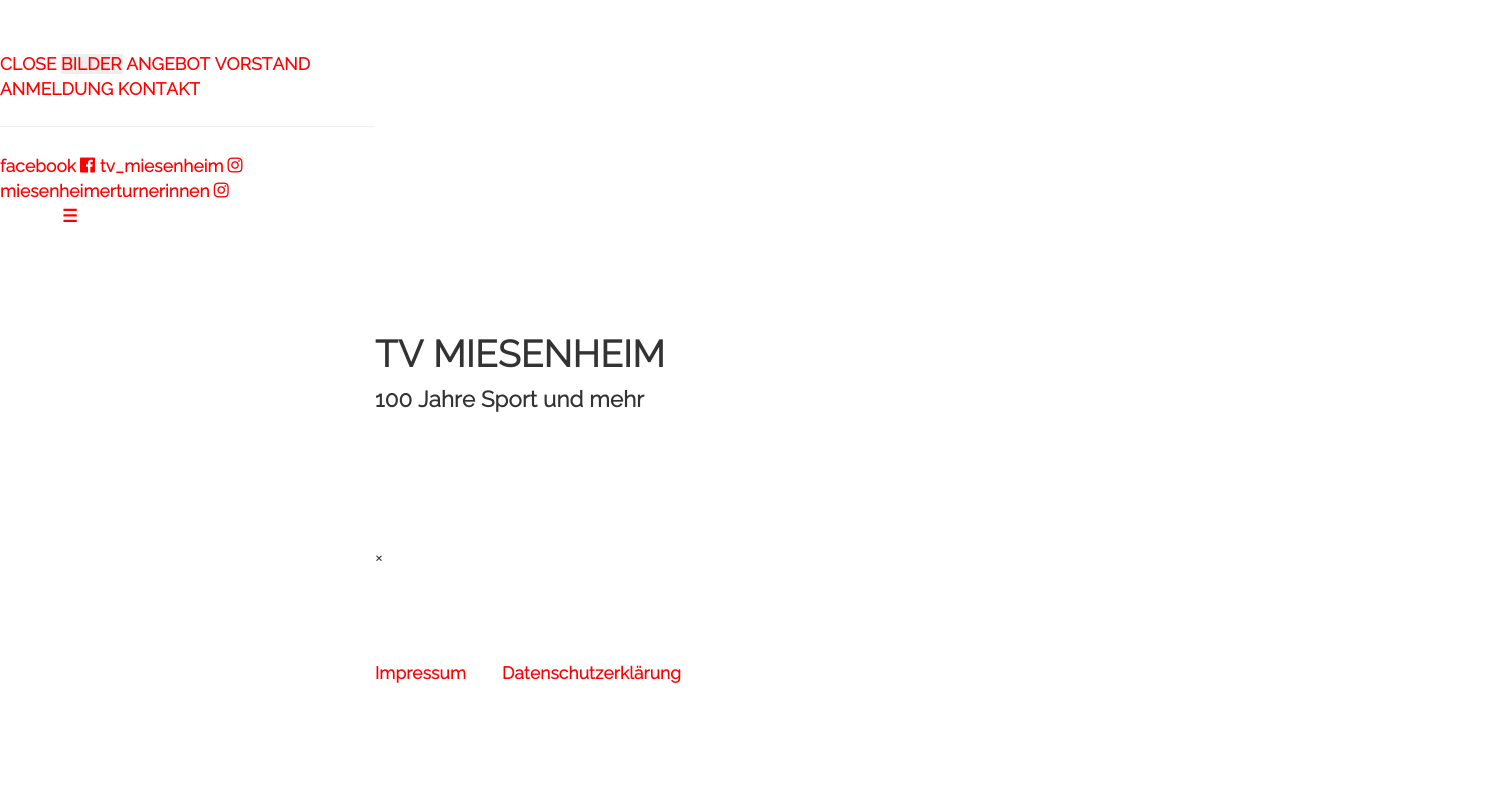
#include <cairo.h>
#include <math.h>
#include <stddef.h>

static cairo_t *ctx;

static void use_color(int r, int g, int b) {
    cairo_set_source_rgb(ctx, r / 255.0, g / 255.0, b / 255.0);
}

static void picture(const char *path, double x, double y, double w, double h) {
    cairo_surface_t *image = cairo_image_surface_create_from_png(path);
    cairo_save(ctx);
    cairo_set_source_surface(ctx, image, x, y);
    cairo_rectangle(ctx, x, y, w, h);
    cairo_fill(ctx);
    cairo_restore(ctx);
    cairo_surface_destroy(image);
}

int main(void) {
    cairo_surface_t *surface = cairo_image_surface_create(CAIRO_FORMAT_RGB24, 1496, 803);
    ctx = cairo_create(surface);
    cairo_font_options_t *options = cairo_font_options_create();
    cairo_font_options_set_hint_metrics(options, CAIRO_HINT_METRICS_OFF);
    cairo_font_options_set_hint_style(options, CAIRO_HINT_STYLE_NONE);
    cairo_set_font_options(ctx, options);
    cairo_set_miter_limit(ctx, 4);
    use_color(255, 255, 255);
    cairo_paint(ctx);
    cairo_select_font_face(ctx, "Raleway", CAIRO_FONT_SLANT_NORMAL, CAIRO_FONT_WEIGHT_BOLD);
    cairo_set_font_size(ctx, 17.5);
    use_color(255, 0, 0);
    cairo_move_to(ctx, 0, 70);
    cairo_show_text(ctx, "CLOSE");
    use_color(238, 238, 238);
    cairo_rectangle(ctx, 61, 54, 62, 20);
    cairo_fill(ctx);
    use_color(255, 0, 0);
    cairo_move_to(ctx, 61, 70);
    cairo_show_text(ctx, "BILDER ANGEBOT VORSTAND");
    cairo_move_to(ctx, 0, 95);
    cairo_show_text(ctx, "ANMELDUNG KONTAKT");
    use_color(238, 238, 238);
    cairo_rectangle(ctx, 0, 126, 375, 1);
    cairo_fill(ctx);
    use_color(255, 0, 0);
    cairo_move_to(ctx, 0, 172);
    cairo_show_text(ctx, "facebook");
    picture("img1.png", 80, 157, 15, 16);
    cairo_move_to(ctx, 100, 172);
    cairo_show_text(ctx, "tv_miesenheim");
    picture("img2.png", 227, 157, 16, 16);
    cairo_move_to(ctx, 0, 197);
    cairo_show_text(ctx, "miesenheimerturnerinnen");
    picture("img3.png", 213, 182, 16, 16);
    cairo_select_font_face(ctx, "DejaVu Sans", CAIRO_FONT_SLANT_NORMAL, CAIRO_FONT_WEIGHT_BOLD);
    cairo_move_to(ctx, 62, 222);
    cairo_show_text(ctx, "☰");
    cairo_select_font_face(ctx, "Raleway", CAIRO_FONT_SLANT_NORMAL, CAIRO_FONT_WEIGHT_BOLD);
    cairo_set_font_size(ctx, 37.5);
    use_color(51, 51, 51);
    cairo_move_to(ctx, 375, 367);
    cairo_show_text(ctx, "TV MIESENHEIM");
    cairo_set_font_size(ctx, 22.5);
    cairo_move_to(ctx, 375, 407);
    cairo_show_text(ctx, "100 Jahre Sport und mehr");
    cairo_select_font_face(ctx, "Raleway Thin", CAIRO_FONT_SLANT_NORMAL, CAIRO_FONT_WEIGHT_NORMAL);
    cairo_set_font_size(ctx, 17.5);
    cairo_move_to(ctx, 375, 563);
    cairo_show_text(ctx, "×");
    cairo_select_font_face(ctx, "Raleway", CAIRO_FONT_SLANT_NORMAL, CAIRO_FONT_WEIGHT_BOLD);
    use_color(255, 0, 0);
    cairo_move_to(ctx, 375, 679);
    cairo_show_text(ctx, "Impressum");
    cairo_move_to(ctx, 502, 679);
    cairo_show_text(ctx, "Datenschutzerklärung");
    cairo_surface_write_to_png(surface, "result.png");
    cairo_font_options_destroy(options);
    cairo_destroy(ctx);
    cairo_surface_destroy(surface);
    return 0;
}
